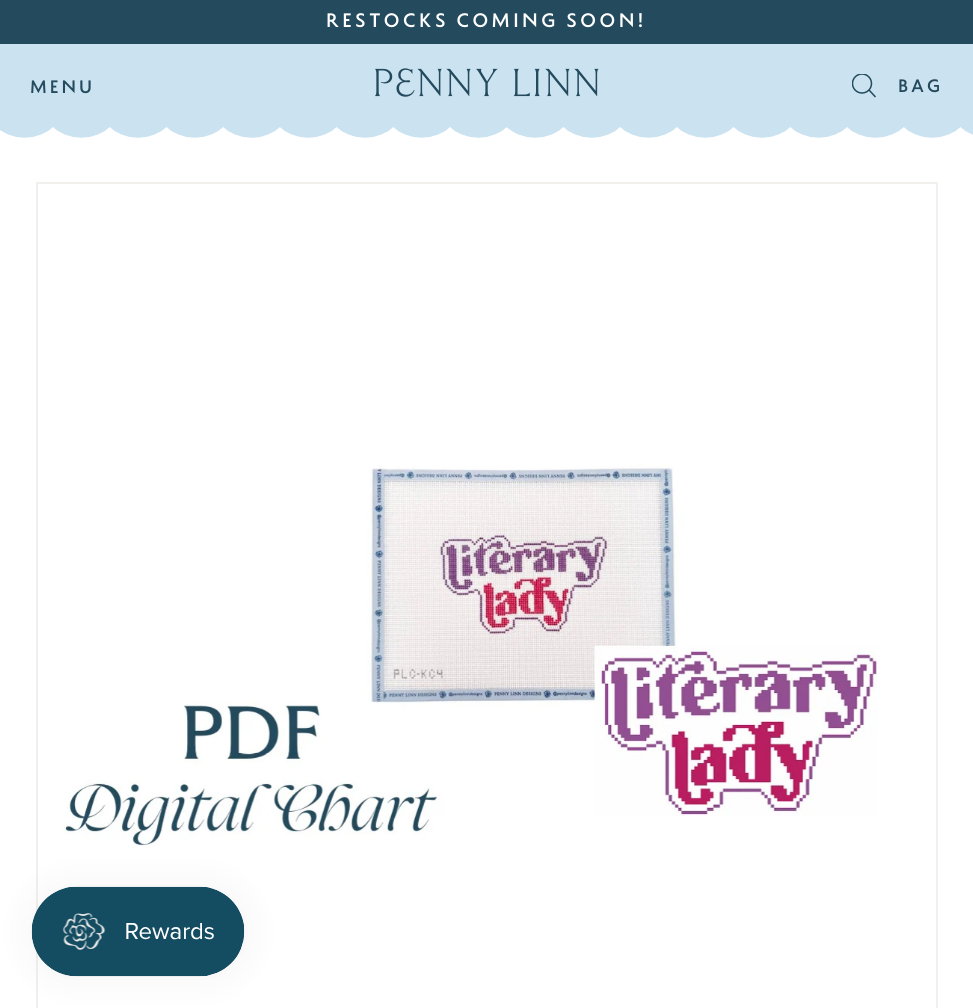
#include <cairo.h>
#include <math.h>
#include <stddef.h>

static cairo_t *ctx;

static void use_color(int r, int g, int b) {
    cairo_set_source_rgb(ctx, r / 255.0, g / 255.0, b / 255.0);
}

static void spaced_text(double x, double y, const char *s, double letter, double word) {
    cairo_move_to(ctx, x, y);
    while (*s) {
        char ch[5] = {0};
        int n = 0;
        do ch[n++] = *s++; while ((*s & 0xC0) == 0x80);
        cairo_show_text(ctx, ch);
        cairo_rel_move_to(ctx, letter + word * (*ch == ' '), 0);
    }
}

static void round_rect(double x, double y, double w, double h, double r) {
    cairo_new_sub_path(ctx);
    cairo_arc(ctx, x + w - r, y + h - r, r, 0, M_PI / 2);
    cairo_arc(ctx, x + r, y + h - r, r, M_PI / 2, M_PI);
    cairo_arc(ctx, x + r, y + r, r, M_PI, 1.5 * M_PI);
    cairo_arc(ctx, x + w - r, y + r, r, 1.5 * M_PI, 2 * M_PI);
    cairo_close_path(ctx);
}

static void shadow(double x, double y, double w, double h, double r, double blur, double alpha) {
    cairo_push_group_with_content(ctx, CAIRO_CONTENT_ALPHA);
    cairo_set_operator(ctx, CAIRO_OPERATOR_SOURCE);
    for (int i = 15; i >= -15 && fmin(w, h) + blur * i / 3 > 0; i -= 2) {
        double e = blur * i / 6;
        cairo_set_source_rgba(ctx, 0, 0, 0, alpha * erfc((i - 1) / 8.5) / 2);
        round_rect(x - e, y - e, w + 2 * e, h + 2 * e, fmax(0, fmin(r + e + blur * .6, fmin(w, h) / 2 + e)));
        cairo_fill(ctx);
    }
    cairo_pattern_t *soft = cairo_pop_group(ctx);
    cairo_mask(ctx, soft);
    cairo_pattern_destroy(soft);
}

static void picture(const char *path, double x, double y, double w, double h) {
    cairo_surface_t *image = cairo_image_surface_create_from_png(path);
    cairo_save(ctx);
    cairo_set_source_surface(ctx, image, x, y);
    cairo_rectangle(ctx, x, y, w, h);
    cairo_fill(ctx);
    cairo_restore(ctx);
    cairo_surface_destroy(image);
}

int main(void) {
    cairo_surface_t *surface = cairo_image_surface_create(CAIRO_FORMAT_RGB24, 973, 1008);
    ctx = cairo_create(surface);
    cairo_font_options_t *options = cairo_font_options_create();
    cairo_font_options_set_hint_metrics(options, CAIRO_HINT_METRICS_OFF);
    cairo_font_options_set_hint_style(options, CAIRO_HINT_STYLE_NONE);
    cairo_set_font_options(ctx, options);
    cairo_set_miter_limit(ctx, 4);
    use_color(255, 255, 255);
    cairo_paint(ctx);
    use_color(203, 226, 240);
    cairo_rectangle(ctx, 0, 44, 973, 70);
    cairo_fill(ctx);
    use_color(35, 74, 93);
    cairo_rectangle(ctx, 0, 0, 973, 44);
    cairo_fill(ctx);
    cairo_select_font_face(ctx, "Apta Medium", CAIRO_FONT_SLANT_NORMAL, CAIRO_FONT_WEIGHT_NORMAL);
    cairo_set_font_size(ctx, 19.5);
    use_color(255, 255, 255);
    spaced_text(326, 27, "RESTOCKS COMING SOON!", 3.5, 0);
    cairo_set_font_size(ctx, 18);
    use_color(35, 74, 93);
    spaced_text(30, 93, "MENU", 3, 0);
    picture("img1.png", 375, 68, 224, 29);
    cairo_save(ctx);
    cairo_rectangle(ctx, 852, 74, 24, 24);
    cairo_clip(ctx);
    cairo_arc(ctx, 862, 83.5, 9.5, 0, 2 * M_PI);
    cairo_set_line_width(ctx, 1.5);
    cairo_stroke(ctx);
    cairo_restore(ctx);
    cairo_new_path(ctx);
    cairo_move_to(ctx, 869, 90);
    cairo_line_to(ctx, 875.5, 97);
    cairo_set_line_width(ctx, 1.5);
    cairo_stroke(ctx);
    spaced_text(898, 92, "BAG", 3, 0);
    picture("img2.png", 0, 114, 973, 24);
    cairo_rectangle(ctx, 37, 183, 900, 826);
    use_color(242, 240, 237);
    cairo_set_line_width(ctx, 2);
    cairo_stroke(ctx);
    picture("img3.png", 61, 464, 816, 382);
    use_color(0, 0, 0);
    shadow(32, 887, 213, 90, 45, 19, 0.05);
    picture("img4.png", 31, 886, 214, 91);
    cairo_surface_write_to_png(surface, "result.png");
    cairo_font_options_destroy(options);
    cairo_destroy(ctx);
    cairo_surface_destroy(surface);
    return 0;
}
